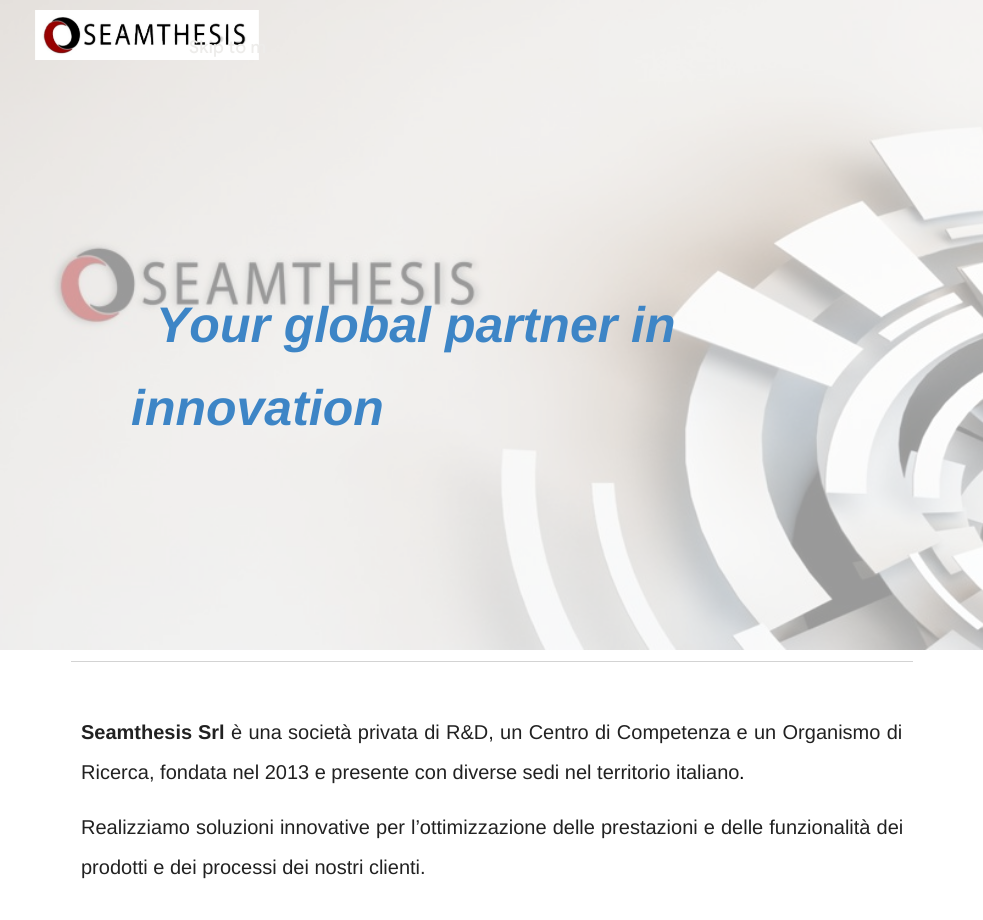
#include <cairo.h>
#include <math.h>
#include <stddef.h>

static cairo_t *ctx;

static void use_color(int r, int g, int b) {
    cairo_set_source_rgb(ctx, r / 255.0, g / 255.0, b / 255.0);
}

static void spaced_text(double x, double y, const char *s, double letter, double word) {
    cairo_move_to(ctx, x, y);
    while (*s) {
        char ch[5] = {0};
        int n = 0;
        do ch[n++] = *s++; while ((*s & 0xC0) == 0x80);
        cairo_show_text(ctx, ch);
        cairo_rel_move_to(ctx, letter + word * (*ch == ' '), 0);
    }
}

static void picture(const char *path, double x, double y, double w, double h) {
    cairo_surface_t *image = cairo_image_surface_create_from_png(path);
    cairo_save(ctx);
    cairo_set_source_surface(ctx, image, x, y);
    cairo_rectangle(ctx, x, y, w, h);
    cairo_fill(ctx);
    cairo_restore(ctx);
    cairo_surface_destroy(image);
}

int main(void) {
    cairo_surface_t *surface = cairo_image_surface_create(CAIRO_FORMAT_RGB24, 983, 920);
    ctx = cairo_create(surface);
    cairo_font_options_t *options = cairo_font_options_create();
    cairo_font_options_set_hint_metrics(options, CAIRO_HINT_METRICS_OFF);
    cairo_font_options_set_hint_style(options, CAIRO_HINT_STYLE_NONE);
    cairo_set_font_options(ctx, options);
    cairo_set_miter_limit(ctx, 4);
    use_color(255, 255, 255);
    cairo_paint(ctx);
    picture("img2.png", 0, 0, 983, 650);
    picture("img1.png", 35, 10, 224, 50);
    cairo_select_font_face(ctx, "Google Sans Medium", CAIRO_FONT_SLANT_NORMAL, CAIRO_FONT_WEIGHT_NORMAL);
    cairo_set_font_size(ctx, 17.5);
    use_color(237, 236, 234);
    spaced_text(189, 53, "Skip to m", 0.25, 0);
    cairo_select_font_face(ctx, "Liberation Sans", CAIRO_FONT_SLANT_ITALIC, CAIRO_FONT_WEIGHT_BOLD);
    cairo_set_font_size(ctx, 50);
    use_color(61, 133, 198);
    cairo_move_to(ctx, 156, 342);
    cairo_show_text(ctx, "Your global partner in");
    cairo_move_to(ctx, 131, 425);
    cairo_show_text(ctx, "innovation");
    use_color(211, 211, 211);
    cairo_rectangle(ctx, 71, 661, 842, 1);
    cairo_fill(ctx);
    cairo_select_font_face(ctx, "Liberation Sans", CAIRO_FONT_SLANT_NORMAL, CAIRO_FONT_WEIGHT_BOLD);
    cairo_set_font_size(ctx, 20);
    use_color(33, 33, 33);
    cairo_move_to(ctx, 81, 739);
    cairo_show_text(ctx, "Seamthesis");
    cairo_move_to(ctx, 198, 739);
    cairo_show_text(ctx, "Srl");
    cairo_select_font_face(ctx, "Liberation Sans", CAIRO_FONT_SLANT_NORMAL, CAIRO_FONT_WEIGHT_NORMAL);
    spaced_text(231, 739, "è una società privata di R&D, un Centro di Competenza e un Organismo di", 0, 0.75);
    cairo_move_to(ctx, 81, 779);
    cairo_show_text(ctx, "Ricerca");
    cairo_move_to(ctx, 149, 779);
    cairo_show_text(ctx, ", fondata nel 2013 e presente con diverse sedi nel territorio italiano");
    use_color(0, 0, 0);
    cairo_move_to(ctx, 739, 779);
    cairo_show_text(ctx, ".");
    use_color(33, 33, 33);
    spaced_text(81, 834, "Realizziamo soluzioni innovative per l’ottimizzazione delle prestazioni e delle funzionalità dei", 0, 0.5);
    cairo_move_to(ctx, 81, 874);
    cairo_show_text(ctx, "prodotti e dei processi dei nostri clienti.");
    cairo_surface_write_to_png(surface, "result.png");
    cairo_font_options_destroy(options);
    cairo_destroy(ctx);
    cairo_surface_destroy(surface);
    return 0;
}
